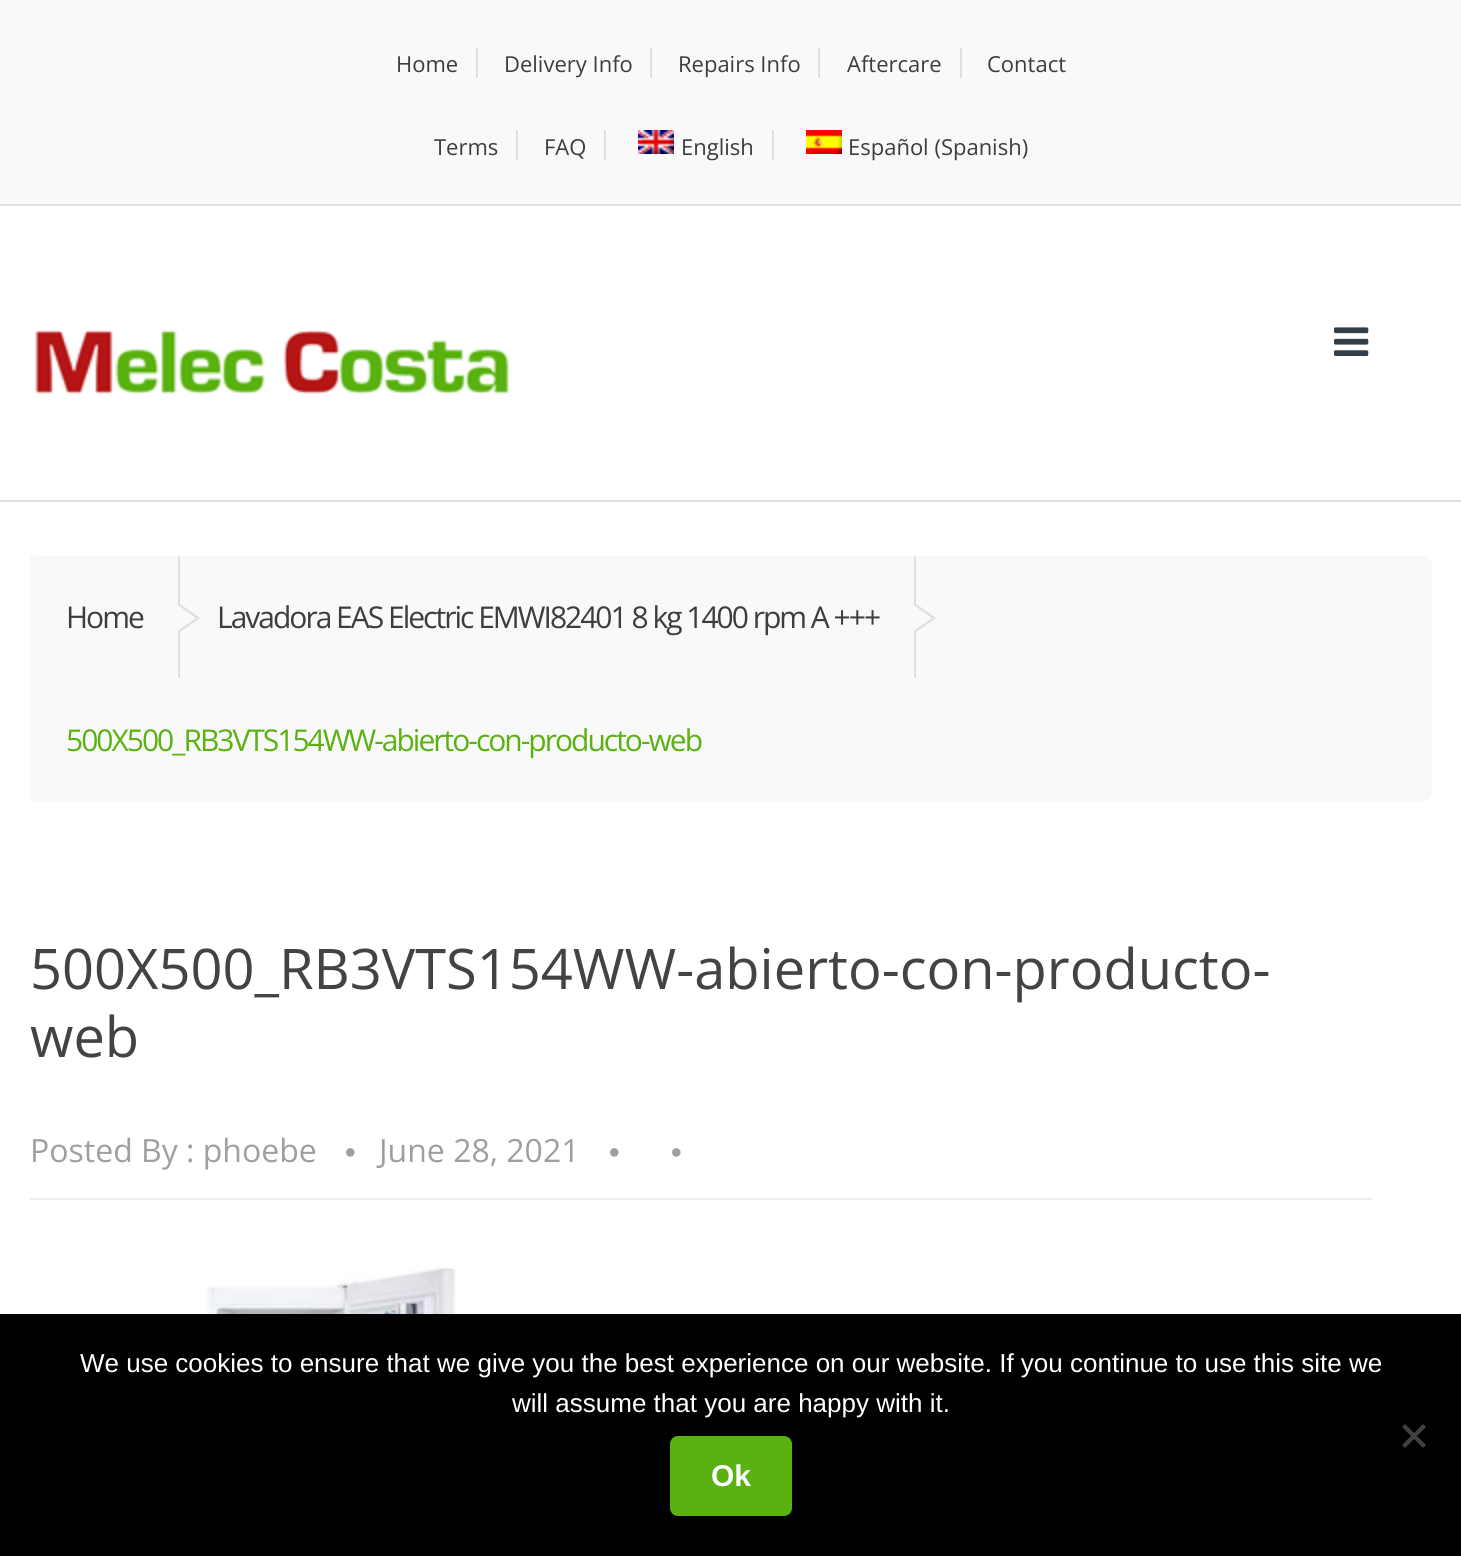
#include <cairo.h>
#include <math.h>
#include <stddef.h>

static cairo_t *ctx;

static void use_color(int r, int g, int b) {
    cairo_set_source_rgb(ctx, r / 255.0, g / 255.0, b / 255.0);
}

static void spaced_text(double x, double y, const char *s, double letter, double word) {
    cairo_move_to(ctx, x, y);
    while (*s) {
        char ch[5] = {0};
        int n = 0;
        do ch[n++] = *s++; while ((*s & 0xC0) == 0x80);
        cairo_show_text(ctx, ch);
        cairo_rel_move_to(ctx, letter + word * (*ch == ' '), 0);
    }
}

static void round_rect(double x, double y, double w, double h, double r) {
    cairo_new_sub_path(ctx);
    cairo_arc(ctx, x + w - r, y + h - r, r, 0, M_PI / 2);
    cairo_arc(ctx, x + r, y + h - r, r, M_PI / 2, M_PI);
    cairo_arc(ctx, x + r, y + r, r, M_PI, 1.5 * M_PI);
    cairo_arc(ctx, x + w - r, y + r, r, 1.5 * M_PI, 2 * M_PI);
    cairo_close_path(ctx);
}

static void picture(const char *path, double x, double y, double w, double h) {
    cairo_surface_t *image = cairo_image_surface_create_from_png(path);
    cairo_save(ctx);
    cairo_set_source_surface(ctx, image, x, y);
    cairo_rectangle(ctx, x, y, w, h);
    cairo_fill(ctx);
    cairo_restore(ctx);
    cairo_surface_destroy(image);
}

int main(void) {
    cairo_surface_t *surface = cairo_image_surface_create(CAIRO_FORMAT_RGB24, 1461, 1556);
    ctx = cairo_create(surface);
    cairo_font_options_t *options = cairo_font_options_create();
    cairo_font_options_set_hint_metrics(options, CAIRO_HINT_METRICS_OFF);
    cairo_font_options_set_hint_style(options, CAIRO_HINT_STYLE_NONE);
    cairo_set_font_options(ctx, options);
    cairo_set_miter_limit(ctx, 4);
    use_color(255, 255, 255);
    cairo_paint(ctx);
    use_color(249, 249, 249);
    cairo_rectangle(ctx, 0, 0, 1461, 204);
    cairo_fill(ctx);
    use_color(224, 223, 223);
    cairo_rectangle(ctx, 0, 204, 1461, 2);
    cairo_fill(ctx);
    cairo_rectangle(ctx, 476, 48, 2, 30);
    cairo_fill(ctx);
    cairo_select_font_face(ctx, "Open Sans", CAIRO_FONT_SLANT_NORMAL, CAIRO_FONT_WEIGHT_NORMAL);
    cairo_set_font_size(ctx, 22);
    use_color(61, 61, 61);
    cairo_move_to(ctx, 396, 72);
    cairo_show_text(ctx, "Home");
    use_color(224, 223, 223);
    cairo_rectangle(ctx, 650, 48, 2, 30);
    cairo_fill(ctx);
    use_color(61, 61, 61);
    cairo_move_to(ctx, 504, 72);
    cairo_show_text(ctx, "Delivery Info");
    use_color(224, 223, 223);
    cairo_rectangle(ctx, 818, 48, 2, 30);
    cairo_fill(ctx);
    use_color(61, 61, 61);
    cairo_move_to(ctx, 678, 72);
    cairo_show_text(ctx, "Repairs Info");
    use_color(224, 223, 223);
    cairo_rectangle(ctx, 960, 48, 2, 30);
    cairo_fill(ctx);
    use_color(61, 61, 61);
    cairo_move_to(ctx, 847, 72);
    cairo_show_text(ctx, "Aftercare");
    cairo_move_to(ctx, 987, 72);
    cairo_show_text(ctx, "Contact");
    use_color(224, 223, 223);
    cairo_rectangle(ctx, 516, 130, 2, 30);
    cairo_fill(ctx);
    use_color(61, 61, 61);
    cairo_move_to(ctx, 434, 155);
    cairo_show_text(ctx, "Terms");
    use_color(224, 223, 223);
    cairo_rectangle(ctx, 604, 130, 2, 30);
    cairo_fill(ctx);
    use_color(61, 61, 61);
    cairo_move_to(ctx, 544, 155);
    cairo_show_text(ctx, "FAQ");
    use_color(224, 223, 223);
    cairo_rectangle(ctx, 772, 130, 2, 30);
    cairo_fill(ctx);
    picture("img1.png", 638, 130, 36, 24);
    use_color(61, 61, 61);
    cairo_move_to(ctx, 681, 155);
    cairo_show_text(ctx, "English");
    picture("img2.png", 806, 130, 36, 24);
    cairo_move_to(ctx, 848, 155);
    cairo_show_text(ctx, "Español (Spanish)");
    use_color(224, 223, 223);
    cairo_rectangle(ctx, 0, 500, 1461, 2);
    cairo_fill(ctx);
    picture("img3.png", 35, 329, 474, 66);
    picture("img4.png", 1334, 327, 35, 29);
    use_color(249, 249, 249);
    round_rect(30, 556, 1402, 246, 10);
    cairo_fill(ctx);
    use_color(224, 223, 223);
    cairo_rectangle(ctx, 178, 556, 2, 122);
    cairo_fill(ctx);
    cairo_new_path(ctx);
    cairo_move_to(ctx, 180, 632);
    cairo_line_to(ctx, 180, 604);
    cairo_line_to(ctx, 200, 618);
    cairo_close_path(ctx);
    cairo_fill(ctx);
    use_color(249, 249, 249);
    cairo_new_path(ctx);
    cairo_move_to(ctx, 176, 632);
    cairo_line_to(ctx, 176, 604);
    cairo_line_to(ctx, 196, 618);
    cairo_close_path(ctx);
    cairo_fill(ctx);
    cairo_rectangle(ctx, 30, 556, 7, 7);
    cairo_fill(ctx);
    cairo_set_font_size(ctx, 30);
    use_color(61, 61, 61);
    spaced_text(66, 628, "Home", -2, 0);
    use_color(224, 223, 223);
    cairo_rectangle(ctx, 914, 556, 2, 122);
    cairo_fill(ctx);
    cairo_new_path(ctx);
    cairo_move_to(ctx, 916, 632);
    cairo_line_to(ctx, 916, 604);
    cairo_line_to(ctx, 936, 618);
    cairo_close_path(ctx);
    cairo_fill(ctx);
    use_color(249, 249, 249);
    cairo_new_path(ctx);
    cairo_move_to(ctx, 912, 632);
    cairo_line_to(ctx, 912, 604);
    cairo_line_to(ctx, 932, 618);
    cairo_close_path(ctx);
    cairo_fill(ctx);
    use_color(61, 61, 61);
    spaced_text(217, 628, "Lavadora EAS Electric EMWI82401 8 kg 1400 rpm A +++", -2, 0);
    use_color(249, 249, 249);
    cairo_rectangle(ctx, 30, 795, 7, 7);
    cairo_fill(ctx);
    use_color(89, 178, 16);
    spaced_text(66, 751, "500X500_RB3VTS154WW-abierto-con-producto-web", -2, 0);
    cairo_set_font_size(ctx, 56);
    use_color(67, 67, 67);
    cairo_move_to(ctx, 30, 989);
    cairo_show_text(ctx, "500X500_RB3VTS154WW-abierto-con-producto-");
    cairo_move_to(ctx, 30, 1057);
    cairo_show_text(ctx, "web");
    use_color(236, 236, 236);
    cairo_rectangle(ctx, 30, 1198, 1342, 2);
    cairo_fill(ctx);
    cairo_set_font_size(ctx, 32);
    use_color(159, 159, 159);
    cairo_move_to(ctx, 30, 1162);
    cairo_show_text(ctx, "Posted By : phoebe");
    picture("img5.png", 346, 1148, 9, 9);
    cairo_move_to(ctx, 379, 1162);
    cairo_show_text(ctx, "June 28, 2021");
    picture("img5.png", 610, 1148, 9, 9);
    picture("img5.png", 672, 1148, 9, 9);
    picture("img6.png", 206, 1264, 250, 50);
    use_color(0, 0, 0);
    cairo_rectangle(ctx, 0, 1314, 1461, 242);
    cairo_fill(ctx);
    cairo_select_font_face(ctx, "Liberation Sans", CAIRO_FONT_SLANT_NORMAL, CAIRO_FONT_WEIGHT_NORMAL);
    cairo_set_font_size(ctx, 26);
    use_color(255, 255, 255);
    cairo_move_to(ctx, 80, 1372);
    cairo_show_text(ctx, "We use cookies to ensure that we give you the best experience on our website. If you continue to use this site we");
    cairo_move_to(ctx, 512, 1412);
    cairo_show_text(ctx, "will assume that you are happy with it.");
    use_color(64, 64, 64);
    cairo_new_path(ctx);
    cairo_move_to(ctx, 1423, 1424);
    cairo_line_to(ctx, 1426, 1427);
    cairo_line_to(ctx, 1405, 1448);
    cairo_line_to(ctx, 1402, 1445);
    cairo_close_path(ctx);
    cairo_fill(ctx);
    cairo_new_path(ctx);
    cairo_move_to(ctx, 1402, 1427);
    cairo_line_to(ctx, 1405, 1424);
    cairo_line_to(ctx, 1426, 1445);
    cairo_line_to(ctx, 1423, 1448);
    cairo_close_path(ctx);
    cairo_fill(ctx);
    use_color(89, 178, 16);
    round_rect(670, 1436, 122, 80, 8);
    cairo_fill(ctx);
    cairo_select_font_face(ctx, "Liberation Sans", CAIRO_FONT_SLANT_NORMAL, CAIRO_FONT_WEIGHT_BOLD);
    cairo_set_font_size(ctx, 30);
    use_color(255, 255, 255);
    cairo_move_to(ctx, 711, 1486);
    cairo_show_text(ctx, "Ok");
    cairo_surface_write_to_png(surface, "result.png");
    cairo_font_options_destroy(options);
    cairo_destroy(ctx);
    cairo_surface_destroy(surface);
    return 0;
}
